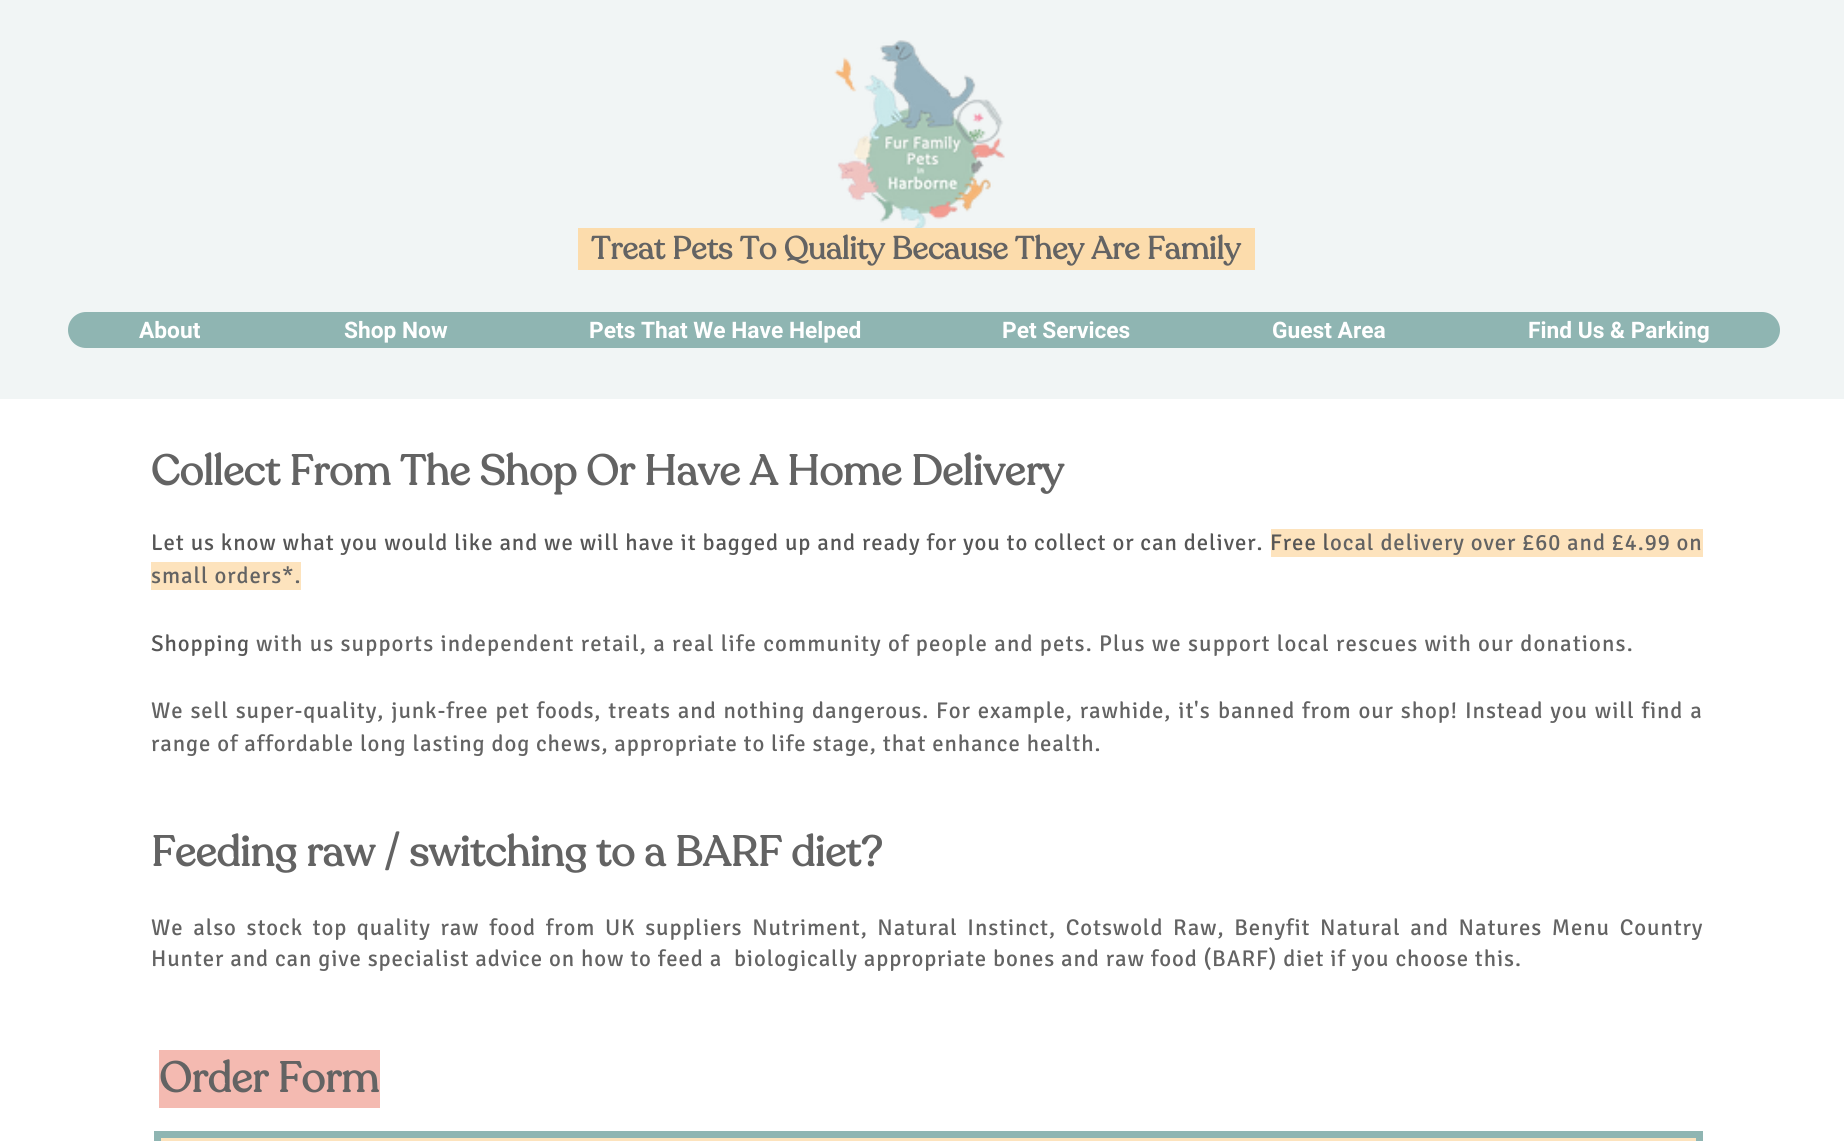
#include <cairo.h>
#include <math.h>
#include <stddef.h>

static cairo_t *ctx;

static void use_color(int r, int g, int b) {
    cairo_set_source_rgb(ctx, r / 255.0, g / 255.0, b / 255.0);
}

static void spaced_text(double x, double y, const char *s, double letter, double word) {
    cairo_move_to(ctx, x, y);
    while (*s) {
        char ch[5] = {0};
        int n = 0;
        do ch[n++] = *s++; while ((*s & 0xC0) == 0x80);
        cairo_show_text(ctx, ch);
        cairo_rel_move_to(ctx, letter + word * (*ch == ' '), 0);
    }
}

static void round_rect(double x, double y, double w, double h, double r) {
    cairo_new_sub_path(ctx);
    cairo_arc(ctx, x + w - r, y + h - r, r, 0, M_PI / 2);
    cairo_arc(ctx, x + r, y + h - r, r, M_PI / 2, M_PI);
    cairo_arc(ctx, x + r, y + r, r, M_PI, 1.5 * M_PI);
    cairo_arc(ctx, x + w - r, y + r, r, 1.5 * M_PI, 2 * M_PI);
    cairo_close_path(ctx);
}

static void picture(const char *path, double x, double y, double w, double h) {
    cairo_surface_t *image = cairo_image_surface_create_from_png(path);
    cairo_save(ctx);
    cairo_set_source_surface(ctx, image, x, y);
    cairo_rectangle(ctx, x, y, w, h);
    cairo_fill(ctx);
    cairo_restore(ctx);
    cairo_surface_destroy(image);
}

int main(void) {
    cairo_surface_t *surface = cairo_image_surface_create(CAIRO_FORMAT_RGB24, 1844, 1141);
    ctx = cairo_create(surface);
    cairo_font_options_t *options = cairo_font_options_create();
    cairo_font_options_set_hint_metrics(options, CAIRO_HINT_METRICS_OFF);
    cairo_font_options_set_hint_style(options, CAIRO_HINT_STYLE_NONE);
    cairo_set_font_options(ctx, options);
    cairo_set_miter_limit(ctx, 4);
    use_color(255, 255, 255);
    cairo_paint(ctx);
    use_color(241, 245, 245);
    cairo_rectangle(ctx, 0, 0, 1844, 399);
    cairo_fill(ctx);
    picture("img1.png", 834, 40, 171, 188);
    use_color(252, 220, 172);
    cairo_rectangle(ctx, 578, 228, 677, 42);
    cairo_fill(ctx);
    cairo_select_font_face(ctx, "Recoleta", CAIRO_FONT_SLANT_NORMAL, CAIRO_FONT_WEIGHT_BOLD);
    cairo_set_font_size(ctx, 31.5);
    use_color(99, 99, 99);
    cairo_move_to(ctx, 591, 259);
    cairo_show_text(ctx, "Treat Pets To Quality Because They Are Family");
    use_color(143, 181, 178);
    round_rect(68, 312, 1712, 36, 18);
    cairo_fill(ctx);
    cairo_select_font_face(ctx, "Roboto", CAIRO_FONT_SLANT_NORMAL, CAIRO_FONT_WEIGHT_BOLD);
    cairo_set_font_size(ctx, 22.75);
    use_color(255, 255, 255);
    cairo_move_to(ctx, 139, 338);
    cairo_show_text(ctx, "About");
    cairo_move_to(ctx, 344, 338);
    cairo_show_text(ctx, "Shop Now");
    cairo_move_to(ctx, 589, 338);
    cairo_show_text(ctx, "Pets That We Have Helped");
    cairo_move_to(ctx, 1002, 338);
    cairo_show_text(ctx, "Pet Services");
    cairo_move_to(ctx, 1272, 338);
    cairo_show_text(ctx, "Guest Area");
    cairo_move_to(ctx, 1528, 338);
    cairo_show_text(ctx, "Find Us & Parking");
    cairo_select_font_face(ctx, "Recoleta", CAIRO_FONT_SLANT_NORMAL, CAIRO_FONT_WEIGHT_BOLD);
    cairo_set_font_size(ctx, 42);
    use_color(99, 99, 99);
    cairo_move_to(ctx, 151, 485);
    cairo_show_text(ctx, "Collect From The Shop Or Have A Home Delivery");
    cairo_select_font_face(ctx, "Signika", CAIRO_FONT_SLANT_NORMAL, CAIRO_FONT_WEIGHT_NORMAL);
    cairo_set_font_size(ctx, 22.75);
    use_color(86, 86, 86);
    spaced_text(151, 550, "Let us know what you would like and we will have it bagged up and ready for you to collect or can deliver.", 0.92, 0);
    use_color(253, 227, 189);
    cairo_rectangle(ctx, 1271, 529, 432, 28);
    cairo_fill(ctx);
    use_color(86, 86, 86);
    spaced_text(1270, 550, "Free l", 0.92, 0);
    use_color(99, 99, 99);
    spaced_text(1330, 550, "ocal delivery over £60 and £4.99 on", 0.92, 0);
    use_color(253, 227, 189);
    cairo_rectangle(ctx, 151, 562, 150, 28);
    cairo_fill(ctx);
    use_color(99, 99, 99);
    spaced_text(151, 583, "small orders*.", 0.92, 0);
    use_color(86, 86, 86);
    spaced_text(151, 651, "Shopping", 0.92, 0);
    use_color(99, 99, 99);
    spaced_text(256, 651, "with us supports independent retail, a real life community of people and pets. Plus we support local rescues with our donations.", 1.14, 0);
    spaced_text(151, 718, "We sell super-quality, junk-free pet foods, treats and nothing dangerous. For example, rawhide, it", 0.91, 1);
    spaced_text(1194, 718, "'s", 0.91, 0);
    spaced_text(1218, 718, "banned", 0.91, 0);
    spaced_text(1302, 718, "from our shop! Instead you will find a", 0.91, 1);
    spaced_text(151, 751, "range of affordable long lasting dog chews, appropriate to life stage, that enhance health.", 0.91, 0);
    cairo_select_font_face(ctx, "Recoleta", CAIRO_FONT_SLANT_NORMAL, CAIRO_FONT_WEIGHT_BOLD);
    cairo_set_font_size(ctx, 42);
    cairo_move_to(ctx, 151, 866);
    cairo_show_text(ctx, "Feeding raw / switching to a BARF diet?");
    cairo_select_font_face(ctx, "Signika", CAIRO_FONT_SLANT_NORMAL, CAIRO_FONT_WEIGHT_NORMAL);
    cairo_set_font_size(ctx, 22.75);
    spaced_text(151, 935, "We also stock top quality raw food from UK suppliers Nutriment, Natural Instinct, Cotswold Raw, Benyfit Natural and Natures Menu Country", 0.91, 3.75);
    spaced_text(151, 966, "Hunter and can give specialist advice on how to feed a  biologically appropriate bones and raw food (BARF) diet if you choose this.", 0.91, 0);
    use_color(244, 186, 177);
    cairo_rectangle(ctx, 159, 1050, 221, 58);
    cairo_fill(ctx);
    cairo_select_font_face(ctx, "Recoleta", CAIRO_FONT_SLANT_NORMAL, CAIRO_FONT_WEIGHT_BOLD);
    cairo_set_font_size(ctx, 42);
    use_color(99, 99, 99);
    cairo_move_to(ctx, 159, 1092);
    cairo_show_text(ctx, "Order Form");
    use_color(253, 227, 189);
    cairo_rectangle(ctx, 157.5, 1134.5, 1542, 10);
    cairo_fill_preserve(ctx);
    use_color(143, 181, 178);
    cairo_set_line_width(ctx, 7);
    cairo_stroke(ctx);
    cairo_surface_write_to_png(surface, "result.png");
    cairo_font_options_destroy(options);
    cairo_destroy(ctx);
    cairo_surface_destroy(surface);
    return 0;
}
